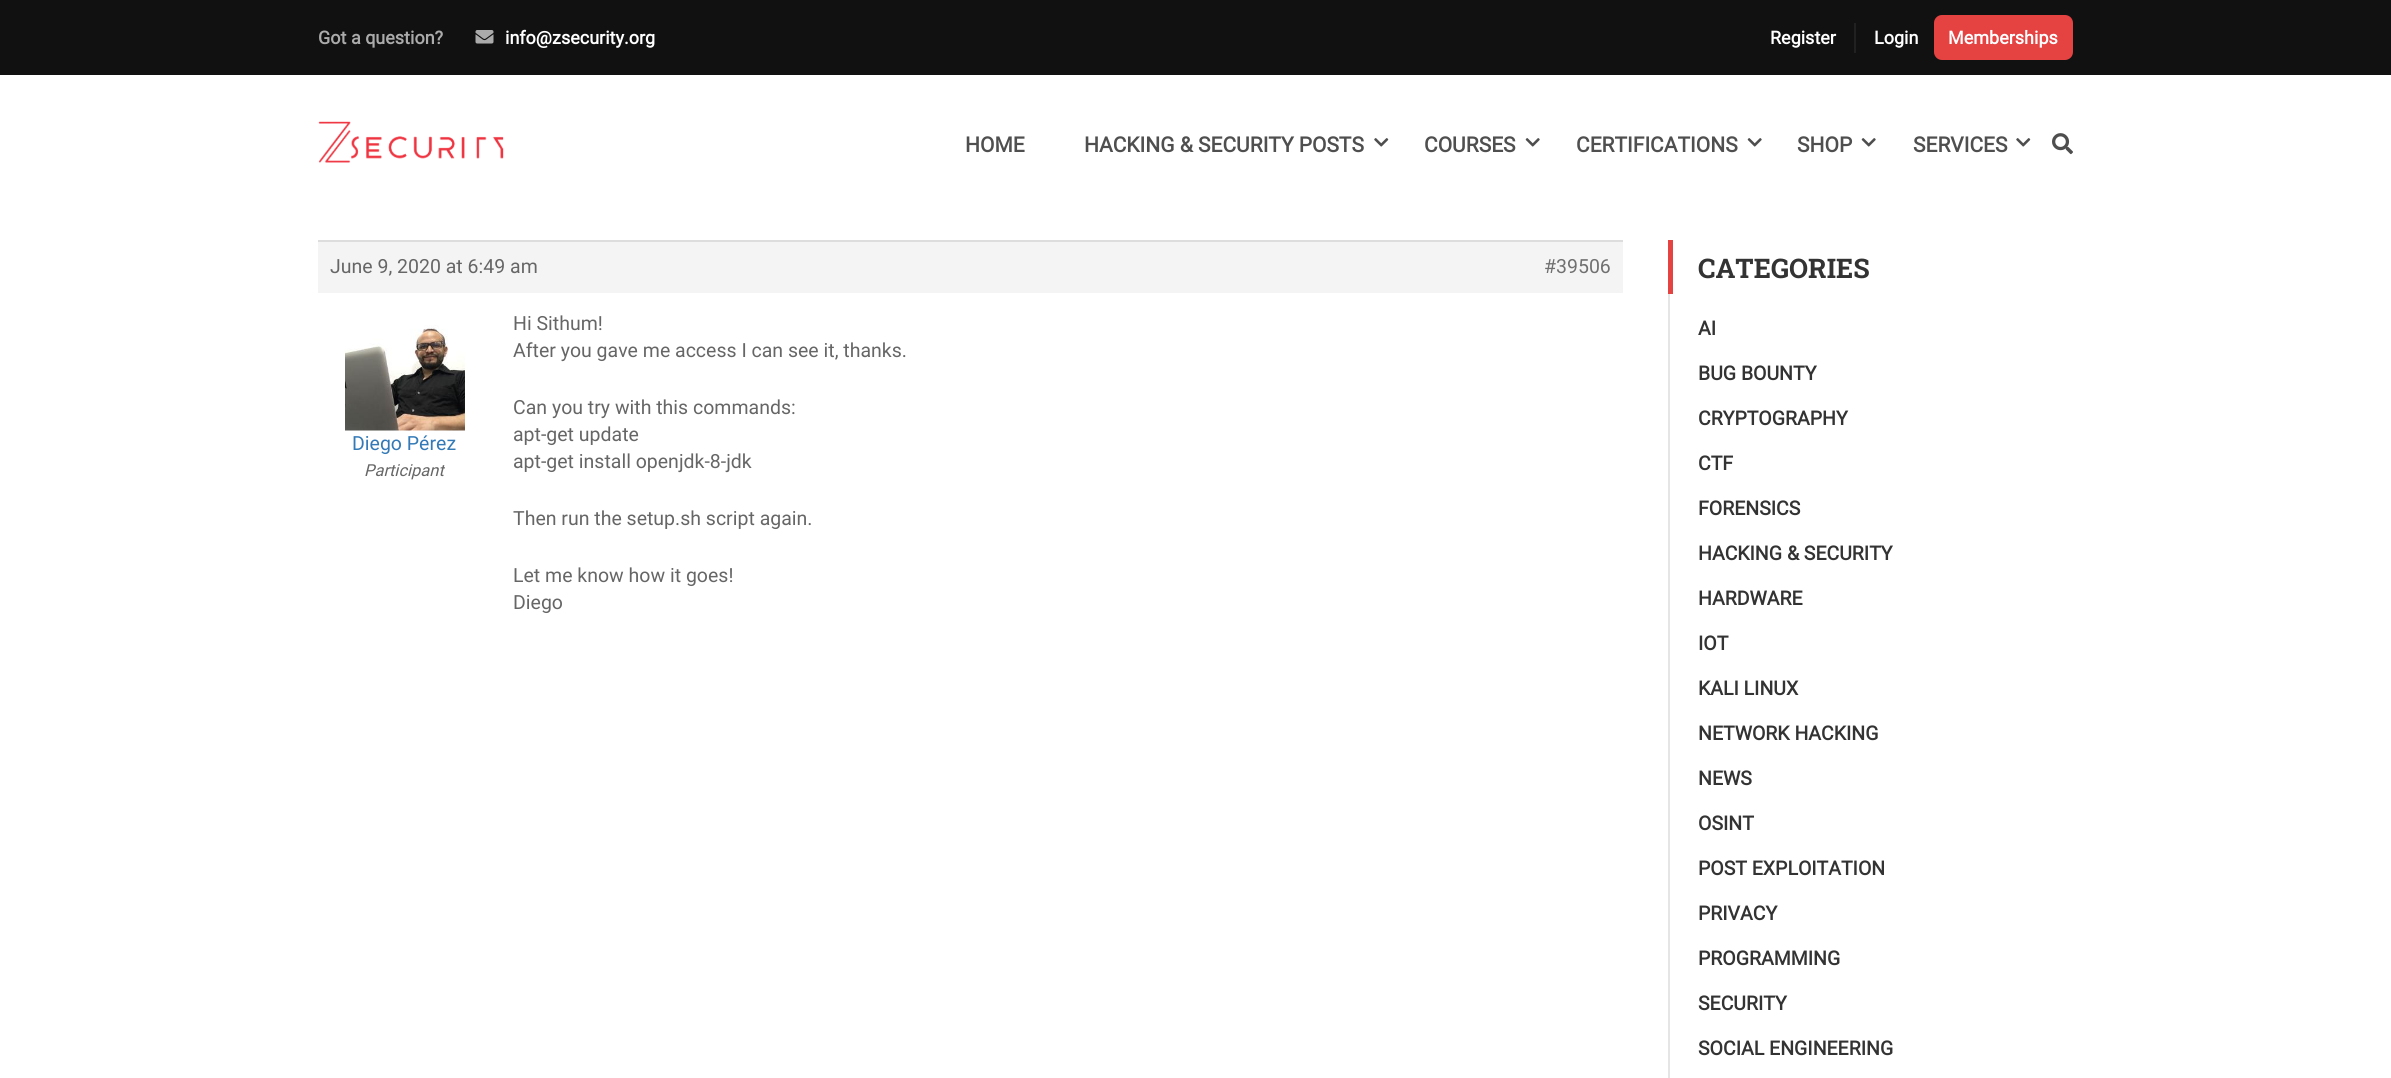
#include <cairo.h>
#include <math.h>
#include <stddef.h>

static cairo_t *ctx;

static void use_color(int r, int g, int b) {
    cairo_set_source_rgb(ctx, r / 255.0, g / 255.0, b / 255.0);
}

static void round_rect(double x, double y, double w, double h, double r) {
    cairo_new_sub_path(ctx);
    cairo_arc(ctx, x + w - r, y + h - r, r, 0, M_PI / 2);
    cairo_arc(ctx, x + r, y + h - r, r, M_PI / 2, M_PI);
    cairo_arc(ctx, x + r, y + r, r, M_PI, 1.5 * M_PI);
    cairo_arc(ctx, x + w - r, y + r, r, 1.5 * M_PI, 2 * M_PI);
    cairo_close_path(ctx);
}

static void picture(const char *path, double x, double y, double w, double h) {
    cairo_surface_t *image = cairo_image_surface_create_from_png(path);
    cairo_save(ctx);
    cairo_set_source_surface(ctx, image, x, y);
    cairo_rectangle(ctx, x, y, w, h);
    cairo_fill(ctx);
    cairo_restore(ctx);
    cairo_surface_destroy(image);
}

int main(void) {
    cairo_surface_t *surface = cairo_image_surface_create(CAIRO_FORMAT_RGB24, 2391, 1078);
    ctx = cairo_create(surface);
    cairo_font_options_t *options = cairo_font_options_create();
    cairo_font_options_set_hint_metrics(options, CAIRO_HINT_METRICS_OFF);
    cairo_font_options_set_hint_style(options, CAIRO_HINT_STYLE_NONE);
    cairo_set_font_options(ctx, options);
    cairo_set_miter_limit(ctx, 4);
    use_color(255, 255, 255);
    cairo_paint(ctx);
    use_color(17, 17, 17);
    cairo_rectangle(ctx, 0, 0, 2391, 75);
    cairo_fill(ctx);
    cairo_select_font_face(ctx, "Roboto", CAIRO_FONT_SLANT_NORMAL, CAIRO_FONT_WEIGHT_BOLD);
    cairo_set_font_size(ctx, 18);
    use_color(171, 171, 171);
    cairo_move_to(ctx, 318, 44);
    cairo_show_text(ctx, "Got a question?");
    picture("img1.png", 475, 30, 19, 14);
    use_color(255, 255, 255);
    cairo_move_to(ctx, 505, 44);
    cairo_show_text(ctx, "info@zsecurity.org");
    use_color(33, 33, 33);
    cairo_rectangle(ctx, 1854, 23, 2, 30);
    cairo_fill(ctx);
    use_color(255, 255, 255);
    cairo_move_to(ctx, 1770, 44);
    cairo_show_text(ctx, "Register");
    cairo_move_to(ctx, 1874, 44);
    cairo_show_text(ctx, "Login");
    use_color(229, 66, 66);
    round_rect(1934, 15, 139, 45, 8);
    cairo_fill(ctx);
    use_color(255, 255, 255);
    cairo_move_to(ctx, 1948, 44);
    cairo_show_text(ctx, "Memberships");
    picture("img2.png", 318, 121, 186, 42);
    cairo_set_font_size(ctx, 21);
    use_color(79, 79, 79);
    cairo_move_to(ctx, 965, 152);
    cairo_show_text(ctx, "HOME");
    cairo_move_to(ctx, 1084, 152);
    cairo_show_text(ctx, "HACKING & SECURITY POSTS");
    picture("img3.png", 1374, 138, 15, 9);
    cairo_move_to(ctx, 1424, 152);
    cairo_show_text(ctx, "COURSES");
    picture("img4.png", 1525, 138, 15, 9);
    cairo_move_to(ctx, 1576, 152);
    cairo_show_text(ctx, "CERTIFICATIONS");
    picture("img4.png", 1747, 138, 15, 9);
    cairo_move_to(ctx, 1797, 152);
    cairo_show_text(ctx, "SHOP");
    picture("img4.png", 1861, 138, 15, 9);
    cairo_move_to(ctx, 1913, 152);
    cairo_show_text(ctx, "SERVICES");
    picture("img3.png", 2016, 138, 15, 9);
    picture("img5.png", 2052, 133, 21, 22);
    use_color(244, 244, 244);
    cairo_rectangle(ctx, 318, 242, 1305, 51);
    cairo_fill(ctx);
    use_color(221, 221, 221);
    cairo_rectangle(ctx, 318, 240, 1305, 2);
    cairo_fill(ctx);
    cairo_select_font_face(ctx, "Roboto", CAIRO_FONT_SLANT_NORMAL, CAIRO_FONT_WEIGHT_NORMAL);
    cairo_set_font_size(ctx, 19.5);
    use_color(102, 102, 102);
    cairo_move_to(ctx, 330, 273);
    cairo_show_text(ctx, "June 9, 2020 at 6:49 am");
    use_color(112, 112, 112);
    cairo_move_to(ctx, 1544, 273);
    cairo_show_text(ctx, "#39506");
    picture("img6.png", 345, 325, 120, 106);
    use_color(51, 122, 183);
    cairo_move_to(ctx, 352, 450);
    cairo_show_text(ctx, "Diego Pérez");
    cairo_select_font_face(ctx, "Roboto", CAIRO_FONT_SLANT_ITALIC, CAIRO_FONT_WEIGHT_NORMAL);
    cairo_set_font_size(ctx, 16.5);
    use_color(102, 102, 102);
    cairo_move_to(ctx, 364, 476);
    cairo_show_text(ctx, "Participant");
    cairo_select_font_face(ctx, "Roboto", CAIRO_FONT_SLANT_NORMAL, CAIRO_FONT_WEIGHT_NORMAL);
    cairo_set_font_size(ctx, 19.5);
    cairo_move_to(ctx, 513, 330);
    cairo_show_text(ctx, "Hi Sithum!");
    cairo_move_to(ctx, 513, 357);
    cairo_show_text(ctx, "After you gave me access I can see it, thanks.");
    cairo_move_to(ctx, 513, 414);
    cairo_show_text(ctx, "Can you try with this commands:");
    cairo_move_to(ctx, 513, 441);
    cairo_show_text(ctx, "apt-get update");
    cairo_move_to(ctx, 513, 468);
    cairo_show_text(ctx, "apt-get install openjdk-8-jdk");
    cairo_move_to(ctx, 513, 525);
    cairo_show_text(ctx, "Then run the setup.sh script again.");
    cairo_move_to(ctx, 513, 582);
    cairo_show_text(ctx, "Let me know how it goes!");
    cairo_move_to(ctx, 513, 609);
    cairo_show_text(ctx, "Diego");
    use_color(229, 66, 66);
    cairo_rectangle(ctx, 1668, 240, 5, 54);
    cairo_fill(ctx);
    cairo_select_font_face(ctx, "Roboto Slab", CAIRO_FONT_SLANT_NORMAL, CAIRO_FONT_WEIGHT_BOLD);
    cairo_set_font_size(ctx, 27);
    use_color(51, 51, 51);
    cairo_move_to(ctx, 1698, 278);
    cairo_show_text(ctx, "CATEGORIES");
    use_color(229, 229, 229);
    cairo_rectangle(ctx, 1668, 294, 2, 784);
    cairo_fill(ctx);
    cairo_select_font_face(ctx, "Roboto", CAIRO_FONT_SLANT_NORMAL, CAIRO_FONT_WEIGHT_BOLD);
    cairo_set_font_size(ctx, 19.5);
    use_color(51, 51, 51);
    cairo_move_to(ctx, 1698, 335);
    cairo_show_text(ctx, "AI");
    cairo_move_to(ctx, 1698, 380);
    cairo_show_text(ctx, "BUG BOUNTY");
    cairo_move_to(ctx, 1698, 425);
    cairo_show_text(ctx, "CRYPTOGRAPHY");
    cairo_move_to(ctx, 1698, 470);
    cairo_show_text(ctx, "CTF");
    cairo_move_to(ctx, 1698, 515);
    cairo_show_text(ctx, "FORENSICS");
    cairo_move_to(ctx, 1698, 560);
    cairo_show_text(ctx, "HACKING & SECURITY");
    cairo_move_to(ctx, 1698, 605);
    cairo_show_text(ctx, "HARDWARE");
    cairo_move_to(ctx, 1698, 650);
    cairo_show_text(ctx, "IOT");
    cairo_move_to(ctx, 1698, 695);
    cairo_show_text(ctx, "KALI LINUX");
    cairo_move_to(ctx, 1698, 740);
    cairo_show_text(ctx, "NETWORK HACKING");
    cairo_move_to(ctx, 1698, 785);
    cairo_show_text(ctx, "NEWS");
    cairo_move_to(ctx, 1698, 830);
    cairo_show_text(ctx, "OSINT");
    cairo_move_to(ctx, 1698, 875);
    cairo_show_text(ctx, "POST EXPLOITATION");
    cairo_move_to(ctx, 1698, 920);
    cairo_show_text(ctx, "PRIVACY");
    cairo_move_to(ctx, 1698, 965);
    cairo_show_text(ctx, "PROGRAMMING");
    cairo_move_to(ctx, 1698, 1010);
    cairo_show_text(ctx, "SECURITY");
    cairo_move_to(ctx, 1698, 1055);
    cairo_show_text(ctx, "SOCIAL ENGINEERING");
    cairo_surface_write_to_png(surface, "result.png");
    cairo_font_options_destroy(options);
    cairo_destroy(ctx);
    cairo_surface_destroy(surface);
    return 0;
}
